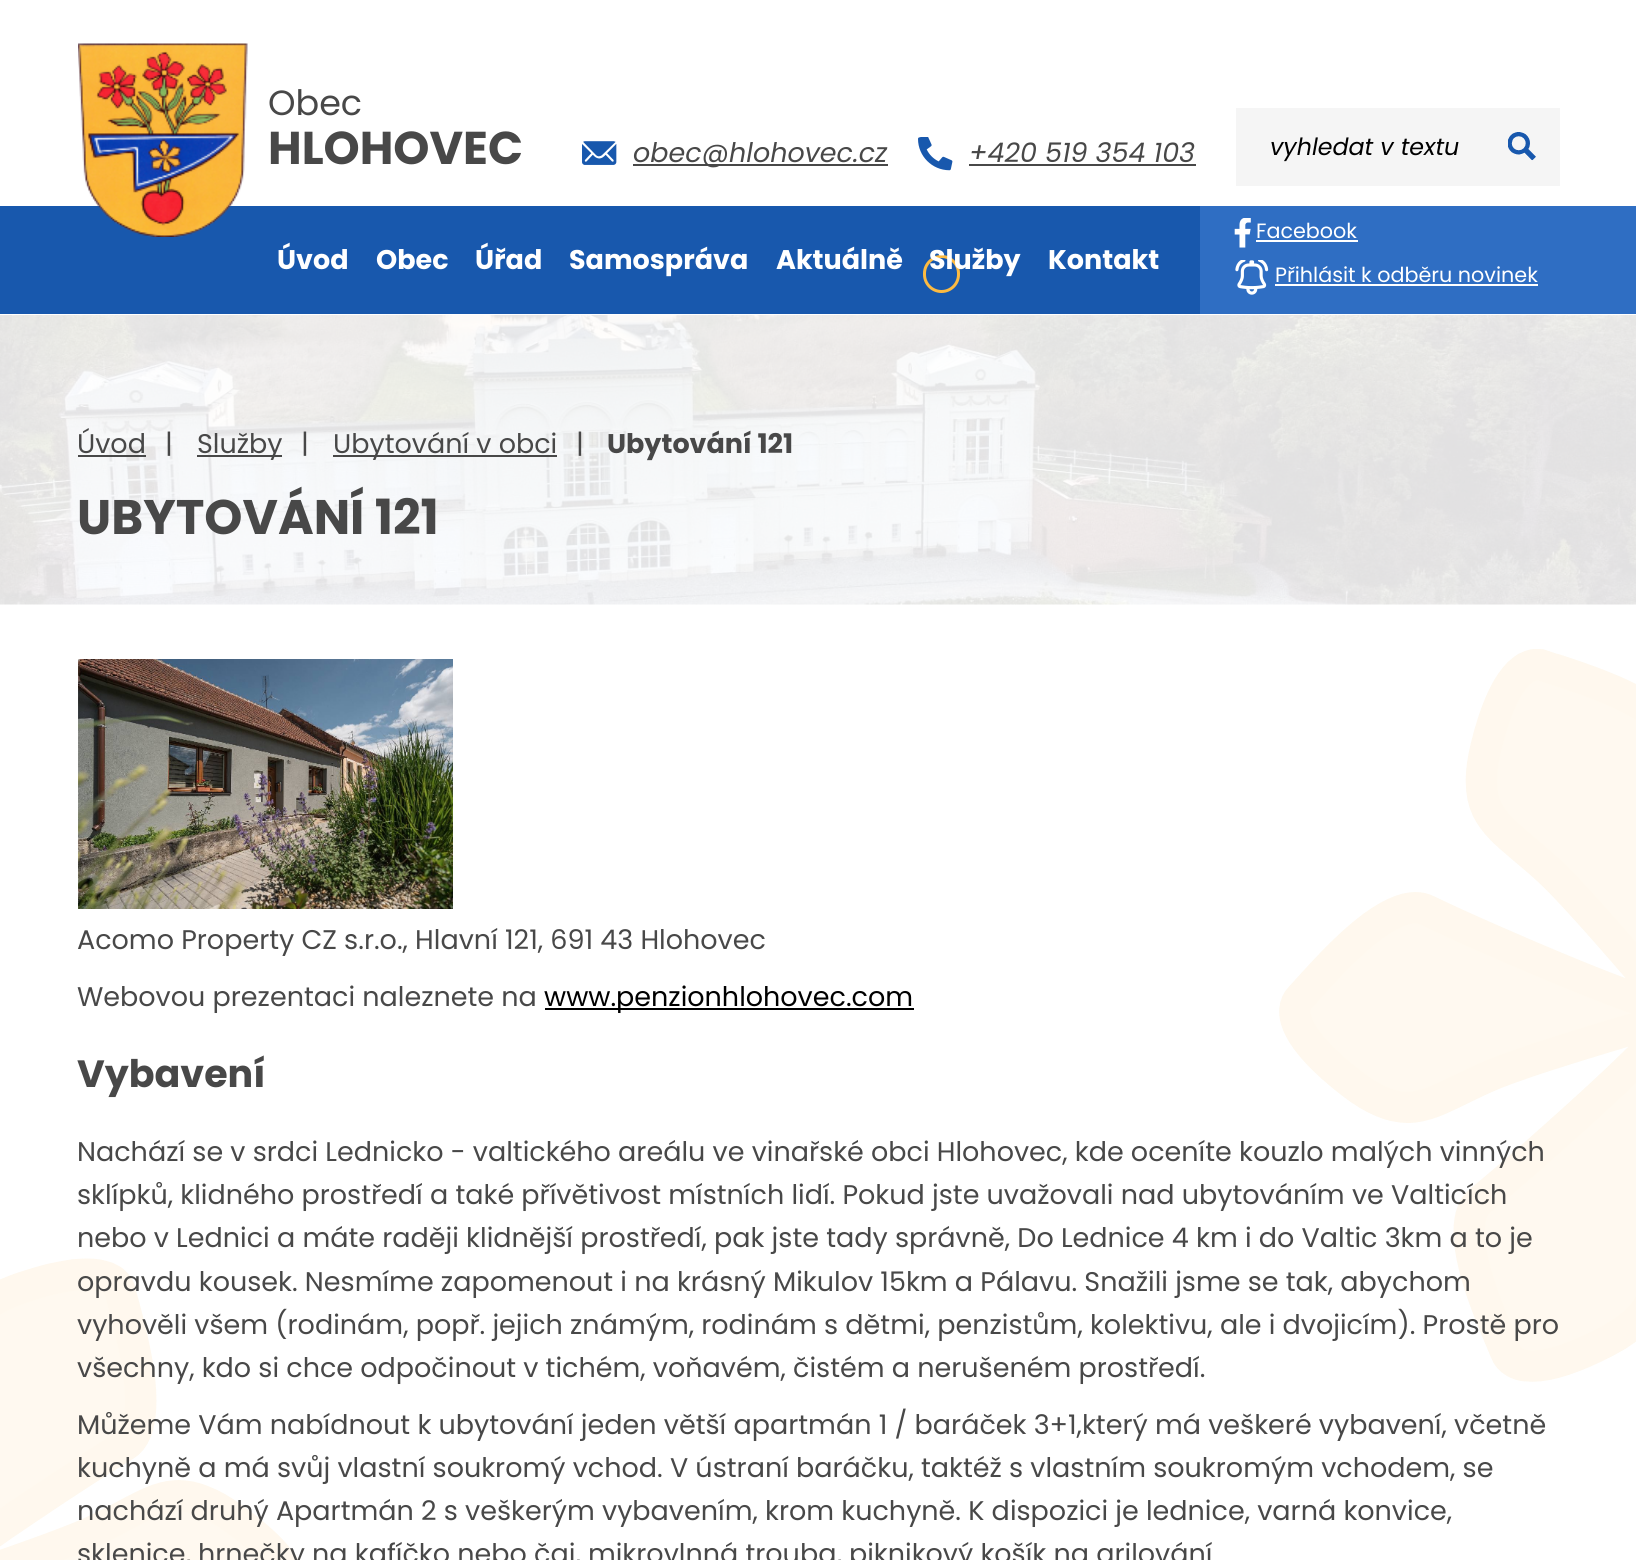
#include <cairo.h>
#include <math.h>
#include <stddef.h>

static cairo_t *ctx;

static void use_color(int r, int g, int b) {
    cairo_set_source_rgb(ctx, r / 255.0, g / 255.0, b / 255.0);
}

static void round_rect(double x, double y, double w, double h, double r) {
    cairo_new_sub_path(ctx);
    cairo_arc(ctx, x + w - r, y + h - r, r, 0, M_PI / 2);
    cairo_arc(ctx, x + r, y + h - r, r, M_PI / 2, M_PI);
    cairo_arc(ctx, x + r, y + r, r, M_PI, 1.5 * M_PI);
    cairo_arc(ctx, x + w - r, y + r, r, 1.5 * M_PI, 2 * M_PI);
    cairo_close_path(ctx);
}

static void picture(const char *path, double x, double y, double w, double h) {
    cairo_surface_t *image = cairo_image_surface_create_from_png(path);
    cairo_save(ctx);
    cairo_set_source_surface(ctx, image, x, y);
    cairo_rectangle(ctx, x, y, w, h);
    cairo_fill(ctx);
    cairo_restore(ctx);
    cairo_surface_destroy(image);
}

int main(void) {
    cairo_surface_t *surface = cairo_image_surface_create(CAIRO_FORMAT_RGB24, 1636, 1560);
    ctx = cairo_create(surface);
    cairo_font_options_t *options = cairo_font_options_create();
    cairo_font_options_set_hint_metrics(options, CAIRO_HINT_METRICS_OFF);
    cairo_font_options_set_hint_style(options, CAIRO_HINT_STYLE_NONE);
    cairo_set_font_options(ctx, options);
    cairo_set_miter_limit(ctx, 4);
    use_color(255, 255, 255);
    cairo_paint(ctx);
    use_color(24, 88, 173);
    cairo_rectangle(ctx, 0, 206, 1200, 108);
    cairo_fill(ctx);
    picture("img1.png", 78, 43, 170, 194);
    cairo_select_font_face(ctx, "Poppins", CAIRO_FONT_SLANT_NORMAL, CAIRO_FONT_WEIGHT_NORMAL);
    cairo_set_font_size(ctx, 35);
    use_color(72, 72, 72);
    cairo_move_to(ctx, 268, 115);
    cairo_show_text(ctx, "Obec");
    cairo_select_font_face(ctx, "Poppins", CAIRO_FONT_SLANT_NORMAL, CAIRO_FONT_WEIGHT_BOLD);
    cairo_set_font_size(ctx, 46);
    cairo_move_to(ctx, 268, 164);
    cairo_show_text(ctx, "HLOHOVEC");
    picture("img2.png", 582, 141, 35, 24);
    cairo_rectangle(ctx, 633, 164, 255, 2);
    cairo_fill(ctx);
    cairo_select_font_face(ctx, "Poppins", CAIRO_FONT_SLANT_ITALIC, CAIRO_FONT_WEIGHT_NORMAL);
    cairo_set_font_size(ctx, 27);
    cairo_move_to(ctx, 633, 162);
    cairo_show_text(ctx, "obec@hlohovec.cz");
    picture("img3.png", 918, 137, 35, 34);
    cairo_move_to(ctx, 969, 162);
    cairo_show_text(ctx, "+420 519 354 103");
    cairo_rectangle(ctx, 969, 164, 227, 2);
    cairo_fill(ctx);
    use_color(245, 245, 245);
    cairo_rectangle(ctx, 1236, 108, 324, 78);
    cairo_fill(ctx);
    cairo_set_font_size(ctx, 23.75);
    use_color(0, 0, 0);
    cairo_move_to(ctx, 1270, 155);
    cairo_show_text(ctx, "vyhledat v textu");
    picture("img4.png", 1508, 132, 28, 29);
    use_color(47, 110, 195);
    cairo_rectangle(ctx, 1200, 206, 436, 108);
    cairo_fill(ctx);
    picture("img5.png", 1234, 218, 17, 30);
    cairo_select_font_face(ctx, "Poppins", CAIRO_FONT_SLANT_NORMAL, CAIRO_FONT_WEIGHT_NORMAL);
    cairo_set_font_size(ctx, 20.7);
    use_color(255, 255, 255);
    cairo_move_to(ctx, 1256, 238);
    cairo_show_text(ctx, "Facebook");
    cairo_rectangle(ctx, 1256, 240, 102, 2);
    cairo_fill(ctx);
    picture("img6.png", 1235, 260, 34, 35);
    cairo_move_to(ctx, 1275, 282);
    cairo_show_text(ctx, "Přihlásit k odběru novinek");
    cairo_rectangle(ctx, 1275, 284, 263, 2);
    cairo_fill(ctx);
    cairo_select_font_face(ctx, "Poppins", CAIRO_FONT_SLANT_NORMAL, CAIRO_FONT_WEIGHT_BOLD);
    cairo_set_font_size(ctx, 27);
    cairo_move_to(ctx, 277, 269);
    cairo_show_text(ctx, "Úvod");
    cairo_move_to(ctx, 376, 269);
    cairo_show_text(ctx, "Obec");
    cairo_move_to(ctx, 475, 269);
    cairo_show_text(ctx, "Úřad");
    cairo_move_to(ctx, 569, 269);
    cairo_show_text(ctx, "Samospráva");
    cairo_move_to(ctx, 776, 269);
    cairo_show_text(ctx, "Aktuálně");
    round_rect(924.5, 256.5, 34, 35, 17);
    use_color(252, 186, 65);
    cairo_set_line_width(ctx, 3);
    cairo_stroke(ctx);
    use_color(255, 255, 255);
    cairo_move_to(ctx, 929, 269);
    cairo_show_text(ctx, "Služby");
    cairo_move_to(ctx, 1048, 269);
    cairo_show_text(ctx, "Kontakt");
    picture("img7.png", 0, 315, 1636, 290);
    cairo_select_font_face(ctx, "Poppins", CAIRO_FONT_SLANT_NORMAL, CAIRO_FONT_WEIGHT_NORMAL);
    use_color(72, 72, 72);
    cairo_move_to(ctx, 77, 453);
    cairo_show_text(ctx, "Úvod");
    cairo_rectangle(ctx, 78, 455, 68, 2);
    cairo_fill(ctx);
    cairo_move_to(ctx, 165, 453);
    cairo_show_text(ctx, "|");
    cairo_rectangle(ctx, 197, 455, 85, 2);
    cairo_fill(ctx);
    cairo_move_to(ctx, 197, 453);
    cairo_show_text(ctx, "Služby");
    cairo_move_to(ctx, 301, 453);
    cairo_show_text(ctx, "|");
    cairo_rectangle(ctx, 333, 455, 224, 2);
    cairo_fill(ctx);
    cairo_move_to(ctx, 333, 453);
    cairo_show_text(ctx, "Ubytování v obci");
    cairo_move_to(ctx, 576, 453);
    cairo_show_text(ctx, "|");
    cairo_select_font_face(ctx, "Poppins", CAIRO_FONT_SLANT_NORMAL, CAIRO_FONT_WEIGHT_BOLD);
    cairo_move_to(ctx, 607, 453);
    cairo_show_text(ctx, "Ubytování 121");
    cairo_set_font_size(ctx, 48.5);
    cairo_move_to(ctx, 77, 534);
    cairo_show_text(ctx, "UBYTOVÁNÍ 121");
    picture("img8.png", 78, 659, 375, 250);
    cairo_select_font_face(ctx, "Poppins", CAIRO_FONT_SLANT_NORMAL, CAIRO_FONT_WEIGHT_NORMAL);
    cairo_set_font_size(ctx, 27);
    cairo_move_to(ctx, 77, 949);
    cairo_show_text(ctx, "Acomo Property CZ s.r.o., Hlavní 121, 691 43 Hlohovec");
    cairo_move_to(ctx, 77, 1006);
    cairo_show_text(ctx, "Webovou prezentaci naleznete na");
    use_color(0, 0, 0);
    cairo_rectangle(ctx, 545, 1008, 369, 2);
    cairo_fill(ctx);
    cairo_move_to(ctx, 544, 1006);
    cairo_show_text(ctx, "www.penzionhlohovec.com");
    cairo_select_font_face(ctx, "Poppins", CAIRO_FONT_SLANT_NORMAL, CAIRO_FONT_WEIGHT_BOLD);
    cairo_set_font_size(ctx, 38);
    use_color(72, 72, 72);
    cairo_move_to(ctx, 77, 1087);
    cairo_show_text(ctx, "Vybavení");
    picture("img10.png", 1279, 649, 357, 733);
    cairo_select_font_face(ctx, "Poppins", CAIRO_FONT_SLANT_NORMAL, CAIRO_FONT_WEIGHT_NORMAL);
    cairo_set_font_size(ctx, 27);
    cairo_move_to(ctx, 77, 1161);
    cairo_show_text(ctx, "Nachází se v srdci Lednicko - valtického areálu ve vinařské obci Hlohovec, kde oceníte kouzlo malých vinných");
    cairo_move_to(ctx, 77, 1204);
    cairo_show_text(ctx, "sklípků, klidného prostředí a také přívětivost místních lidí. Pokud jste uvažovali nad ubytováním ve Valticích");
    cairo_move_to(ctx, 77, 1247);
    cairo_show_text(ctx, "nebo v Lednici a máte raději klidnější prostředí, pak jste tady správně, Do Lednice 4 km i do Valtic 3km a to je");
    picture("img9.png", 0, 1258, 299, 302);
    cairo_move_to(ctx, 77, 1291);
    cairo_show_text(ctx, "opravdu kousek. Nesmíme zapomenout i na krásný Mikulov 15km a Pálavu. Snažili jsme se tak, abychom");
    cairo_move_to(ctx, 77, 1334);
    cairo_show_text(ctx, "vyhověli všem (rodinám, popř. jejich známým, rodinám s dětmi, penzistům, kolektivu, ale i dvojicím). Prostě pro");
    cairo_move_to(ctx, 77, 1377);
    cairo_show_text(ctx, "všechny, kdo si chce odpočinout v tichém, voňavém, čistém a nerušeném prostředí.");
    cairo_move_to(ctx, 77, 1434);
    cairo_show_text(ctx, "Můžeme Vám nabídnout k ubytování jeden větší apartmán 1 / baráček 3+1,který má veškeré vybavení, včetně");
    cairo_move_to(ctx, 77, 1477);
    cairo_show_text(ctx, "kuchyně a má svůj vlastní soukromý vchod. V ústraní baráčku, taktéž s vlastním soukromým vchodem, se");
    cairo_move_to(ctx, 77, 1520);
    cairo_show_text(ctx, "nachází druhý Apartmán 2 s veškerým vybavením, krom kuchyně. K dispozici je lednice, varná konvice,");
    cairo_move_to(ctx, 77, 1563);
    cairo_show_text(ctx, "sklenice, hrnečky na kafíčko nebo čaj, mikrovlnná trouba, piknikový košík na grilování");
    cairo_surface_write_to_png(surface, "result.png");
    cairo_font_options_destroy(options);
    cairo_destroy(ctx);
    cairo_surface_destroy(surface);
    return 0;
}
